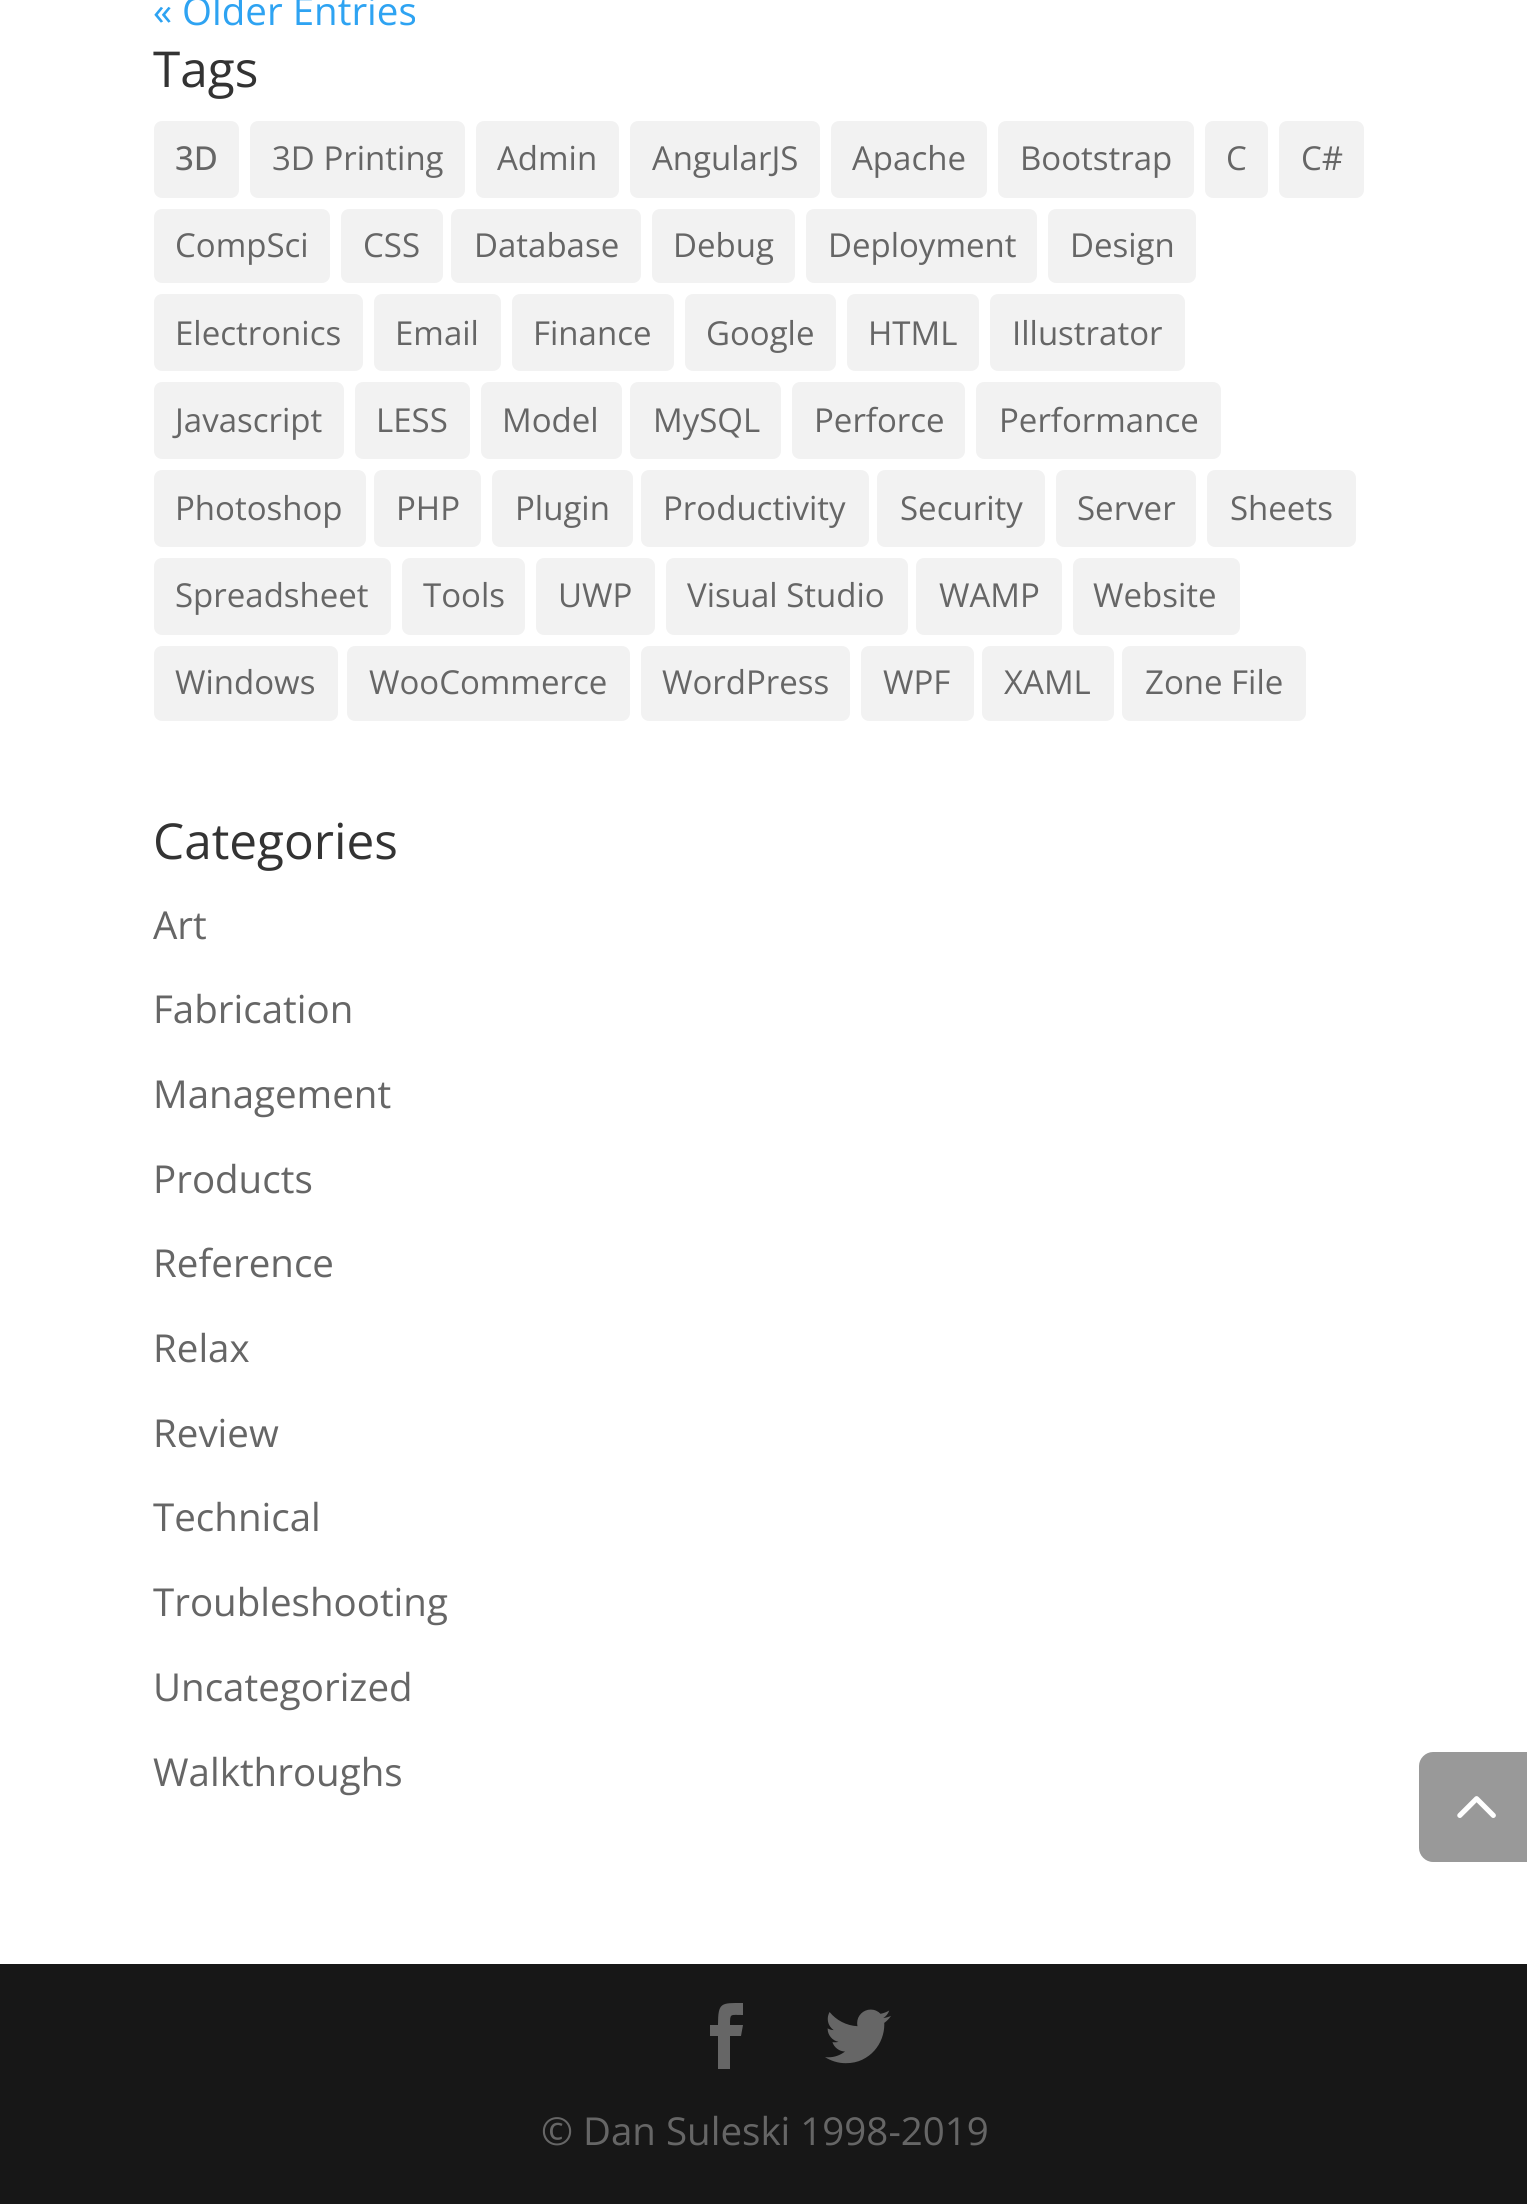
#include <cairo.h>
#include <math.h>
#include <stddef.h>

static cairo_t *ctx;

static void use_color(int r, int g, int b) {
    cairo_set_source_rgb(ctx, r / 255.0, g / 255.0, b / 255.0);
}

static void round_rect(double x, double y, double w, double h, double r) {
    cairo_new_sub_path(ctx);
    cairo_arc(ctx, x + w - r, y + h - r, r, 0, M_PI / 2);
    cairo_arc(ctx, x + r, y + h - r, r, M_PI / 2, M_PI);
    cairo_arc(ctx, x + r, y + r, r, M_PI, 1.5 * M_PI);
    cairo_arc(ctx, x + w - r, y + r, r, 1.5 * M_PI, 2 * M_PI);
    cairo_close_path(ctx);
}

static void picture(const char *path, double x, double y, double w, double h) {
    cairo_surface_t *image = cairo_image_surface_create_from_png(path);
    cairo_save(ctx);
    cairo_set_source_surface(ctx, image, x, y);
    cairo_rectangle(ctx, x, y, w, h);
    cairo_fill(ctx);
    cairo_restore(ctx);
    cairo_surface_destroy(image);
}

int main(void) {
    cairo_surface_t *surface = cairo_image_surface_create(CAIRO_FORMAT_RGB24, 1527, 2204);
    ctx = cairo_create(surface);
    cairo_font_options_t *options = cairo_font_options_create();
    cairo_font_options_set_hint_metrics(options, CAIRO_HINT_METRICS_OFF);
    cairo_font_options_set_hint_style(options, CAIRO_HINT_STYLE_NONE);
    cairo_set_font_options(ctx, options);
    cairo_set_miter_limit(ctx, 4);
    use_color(255, 255, 255);
    cairo_paint(ctx);
    cairo_select_font_face(ctx, "Open Sans", CAIRO_FONT_SLANT_NORMAL, CAIRO_FONT_WEIGHT_NORMAL);
    cairo_set_font_size(ctx, 38.5);
    use_color(46, 163, 242);
    cairo_move_to(ctx, 153, 25);
    cairo_show_text(ctx, "« Older Entries");
    cairo_set_font_size(ctx, 49.5);
    use_color(51, 51, 51);
    cairo_move_to(ctx, 153, 87);
    cairo_show_text(ctx, "Tags");
    use_color(242, 242, 242);
    round_rect(154, 121, 85, 77, 8);
    cairo_fill(ctx);
    cairo_select_font_face(ctx, "Open Sans Medium", CAIRO_FONT_SLANT_NORMAL, CAIRO_FONT_WEIGHT_NORMAL);
    cairo_set_font_size(ctx, 33);
    use_color(102, 102, 102);
    cairo_move_to(ctx, 175, 170);
    cairo_show_text(ctx, "3D");
    use_color(242, 242, 242);
    round_rect(250, 121, 215, 77, 8);
    cairo_fill(ctx);
    cairo_select_font_face(ctx, "Open Sans", CAIRO_FONT_SLANT_NORMAL, CAIRO_FONT_WEIGHT_NORMAL);
    use_color(102, 102, 102);
    cairo_move_to(ctx, 272, 170);
    cairo_show_text(ctx, "3D Printing");
    use_color(242, 242, 242);
    round_rect(476, 121, 143, 77, 8);
    cairo_fill(ctx);
    use_color(102, 102, 102);
    cairo_move_to(ctx, 497, 170);
    cairo_show_text(ctx, "Admin");
    use_color(242, 242, 242);
    round_rect(630, 121, 190, 77, 8);
    cairo_fill(ctx);
    use_color(102, 102, 102);
    cairo_move_to(ctx, 652, 170);
    cairo_show_text(ctx, "AngularJS");
    use_color(242, 242, 242);
    round_rect(831, 121, 156, 77, 8);
    cairo_fill(ctx);
    use_color(102, 102, 102);
    cairo_move_to(ctx, 852, 170);
    cairo_show_text(ctx, "Apache");
    use_color(242, 242, 242);
    round_rect(998, 121, 196, 77, 8);
    cairo_fill(ctx);
    use_color(102, 102, 102);
    cairo_move_to(ctx, 1020, 170);
    cairo_show_text(ctx, "Bootstrap");
    use_color(242, 242, 242);
    round_rect(1205, 121, 63, 77, 8);
    cairo_fill(ctx);
    use_color(102, 102, 102);
    cairo_move_to(ctx, 1226, 170);
    cairo_show_text(ctx, "C");
    use_color(242, 242, 242);
    round_rect(1279, 121, 85, 77, 8);
    cairo_fill(ctx);
    use_color(102, 102, 102);
    cairo_move_to(ctx, 1301, 170);
    cairo_show_text(ctx, "C#");
    use_color(242, 242, 242);
    round_rect(154, 209, 176, 74, 8);
    cairo_fill(ctx);
    use_color(102, 102, 102);
    cairo_move_to(ctx, 175, 257);
    cairo_show_text(ctx, "CompSci");
    use_color(242, 242, 242);
    round_rect(341, 209, 102, 74, 8);
    cairo_fill(ctx);
    use_color(102, 102, 102);
    cairo_move_to(ctx, 363, 257);
    cairo_show_text(ctx, "CSS");
    use_color(242, 242, 242);
    round_rect(451, 209, 190, 74, 8);
    cairo_fill(ctx);
    use_color(102, 102, 102);
    cairo_move_to(ctx, 474, 257);
    cairo_show_text(ctx, "Database");
    use_color(242, 242, 242);
    round_rect(652, 209, 143, 74, 8);
    cairo_fill(ctx);
    use_color(102, 102, 102);
    cairo_move_to(ctx, 673, 257);
    cairo_show_text(ctx, "Debug");
    use_color(242, 242, 242);
    round_rect(806, 209, 231, 74, 8);
    cairo_fill(ctx);
    use_color(102, 102, 102);
    cairo_move_to(ctx, 828, 257);
    cairo_show_text(ctx, "Deployment");
    use_color(242, 242, 242);
    round_rect(1048, 209, 148, 74, 8);
    cairo_fill(ctx);
    use_color(102, 102, 102);
    cairo_move_to(ctx, 1070, 257);
    cairo_show_text(ctx, "Design");
    use_color(242, 242, 242);
    round_rect(154, 294, 209, 77, 8);
    cairo_fill(ctx);
    use_color(102, 102, 102);
    cairo_move_to(ctx, 175, 345);
    cairo_show_text(ctx, "Electronics");
    use_color(242, 242, 242);
    round_rect(374, 294, 127, 77, 8);
    cairo_fill(ctx);
    use_color(102, 102, 102);
    cairo_move_to(ctx, 395, 345);
    cairo_show_text(ctx, "Email");
    use_color(242, 242, 242);
    round_rect(512, 294, 162, 77, 8);
    cairo_fill(ctx);
    use_color(102, 102, 102);
    cairo_move_to(ctx, 533, 345);
    cairo_show_text(ctx, "Finance");
    use_color(242, 242, 242);
    round_rect(685, 294, 151, 77, 8);
    cairo_fill(ctx);
    use_color(102, 102, 102);
    cairo_move_to(ctx, 706, 345);
    cairo_show_text(ctx, "Google");
    use_color(242, 242, 242);
    round_rect(847, 294, 132, 77, 8);
    cairo_fill(ctx);
    use_color(102, 102, 102);
    cairo_move_to(ctx, 868, 345);
    cairo_show_text(ctx, "HTML");
    use_color(242, 242, 242);
    round_rect(990, 294, 195, 77, 8);
    cairo_fill(ctx);
    use_color(102, 102, 102);
    cairo_move_to(ctx, 1012, 345);
    cairo_show_text(ctx, "Illustrator");
    use_color(242, 242, 242);
    round_rect(154, 382, 190, 77, 8);
    cairo_fill(ctx);
    use_color(102, 102, 102);
    cairo_move_to(ctx, 175, 432);
    cairo_show_text(ctx, "Javascript");
    use_color(242, 242, 242);
    round_rect(355, 382, 115, 77, 8);
    cairo_fill(ctx);
    use_color(102, 102, 102);
    cairo_move_to(ctx, 376, 432);
    cairo_show_text(ctx, "LESS");
    use_color(242, 242, 242);
    round_rect(481, 382, 141, 77, 8);
    cairo_fill(ctx);
    use_color(102, 102, 102);
    cairo_move_to(ctx, 502, 432);
    cairo_show_text(ctx, "Model");
    use_color(242, 242, 242);
    round_rect(630, 382, 151, 77, 8);
    cairo_fill(ctx);
    use_color(102, 102, 102);
    cairo_move_to(ctx, 653, 432);
    cairo_show_text(ctx, "MySQL");
    use_color(242, 242, 242);
    round_rect(792, 382, 173, 77, 8);
    cairo_fill(ctx);
    use_color(102, 102, 102);
    cairo_move_to(ctx, 814, 432);
    cairo_show_text(ctx, "Perforce");
    use_color(242, 242, 242);
    round_rect(976, 382, 245, 77, 8);
    cairo_fill(ctx);
    use_color(102, 102, 102);
    cairo_move_to(ctx, 999, 432);
    cairo_show_text(ctx, "Performance");
    use_color(242, 242, 242);
    round_rect(154, 470, 212, 77, 8);
    cairo_fill(ctx);
    use_color(102, 102, 102);
    cairo_move_to(ctx, 175, 520);
    cairo_show_text(ctx, "Photoshop");
    use_color(242, 242, 242);
    round_rect(374, 470, 107, 77, 8);
    cairo_fill(ctx);
    use_color(102, 102, 102);
    cairo_move_to(ctx, 396, 520);
    cairo_show_text(ctx, "PHP");
    use_color(242, 242, 242);
    round_rect(492, 470, 141, 77, 8);
    cairo_fill(ctx);
    use_color(102, 102, 102);
    cairo_move_to(ctx, 515, 520);
    cairo_show_text(ctx, "Plugin");
    use_color(242, 242, 242);
    round_rect(641, 470, 228, 77, 8);
    cairo_fill(ctx);
    use_color(102, 102, 102);
    cairo_move_to(ctx, 663, 520);
    cairo_show_text(ctx, "Productivity");
    use_color(242, 242, 242);
    round_rect(877, 470, 168, 77, 8);
    cairo_fill(ctx);
    use_color(102, 102, 102);
    cairo_move_to(ctx, 900, 520);
    cairo_show_text(ctx, "Security");
    use_color(242, 242, 242);
    round_rect(1056, 470, 140, 77, 8);
    cairo_fill(ctx);
    use_color(102, 102, 102);
    cairo_move_to(ctx, 1077, 520);
    cairo_show_text(ctx, "Server");
    use_color(242, 242, 242);
    round_rect(1207, 470, 149, 77, 8);
    cairo_fill(ctx);
    use_color(102, 102, 102);
    cairo_move_to(ctx, 1230, 520);
    cairo_show_text(ctx, "Sheets");
    use_color(242, 242, 242);
    round_rect(154, 558, 237, 77, 8);
    cairo_fill(ctx);
    use_color(102, 102, 102);
    cairo_move_to(ctx, 175, 607);
    cairo_show_text(ctx, "Spreadsheet");
    use_color(242, 242, 242);
    round_rect(402, 558, 123, 77, 8);
    cairo_fill(ctx);
    use_color(102, 102, 102);
    cairo_move_to(ctx, 423, 607);
    cairo_show_text(ctx, "Tools");
    use_color(242, 242, 242);
    round_rect(536, 558, 119, 77, 8);
    cairo_fill(ctx);
    use_color(102, 102, 102);
    cairo_move_to(ctx, 558, 607);
    cairo_show_text(ctx, "UWP");
    use_color(242, 242, 242);
    round_rect(666, 558, 242, 77, 8);
    cairo_fill(ctx);
    use_color(102, 102, 102);
    cairo_move_to(ctx, 687, 607);
    cairo_show_text(ctx, "Visual Studio");
    use_color(242, 242, 242);
    round_rect(916, 558, 146, 77, 8);
    cairo_fill(ctx);
    use_color(102, 102, 102);
    cairo_move_to(ctx, 939, 607);
    cairo_show_text(ctx, "WAMP");
    use_color(242, 242, 242);
    round_rect(1073, 558, 167, 77, 8);
    cairo_fill(ctx);
    use_color(102, 102, 102);
    cairo_move_to(ctx, 1093, 607);
    cairo_show_text(ctx, "Website");
    use_color(242, 242, 242);
    round_rect(154, 646, 184, 75, 8);
    cairo_fill(ctx);
    use_color(102, 102, 102);
    cairo_move_to(ctx, 175, 694);
    cairo_show_text(ctx, "Windows");
    use_color(242, 242, 242);
    round_rect(347, 646, 283, 75, 8);
    cairo_fill(ctx);
    use_color(102, 102, 102);
    cairo_move_to(ctx, 369, 694);
    cairo_show_text(ctx, "WooCommerce");
    use_color(242, 242, 242);
    round_rect(641, 646, 209, 75, 8);
    cairo_fill(ctx);
    use_color(102, 102, 102);
    cairo_move_to(ctx, 662, 694);
    cairo_show_text(ctx, "WordPress");
    use_color(242, 242, 242);
    round_rect(861, 646, 113, 75, 8);
    cairo_fill(ctx);
    use_color(102, 102, 102);
    cairo_move_to(ctx, 883, 694);
    cairo_show_text(ctx, "WPF");
    use_color(242, 242, 242);
    round_rect(982, 646, 132, 75, 8);
    cairo_fill(ctx);
    use_color(102, 102, 102);
    cairo_move_to(ctx, 1004, 694);
    cairo_show_text(ctx, "XAML");
    use_color(242, 242, 242);
    round_rect(1122, 646, 184, 75, 8);
    cairo_fill(ctx);
    use_color(102, 102, 102);
    cairo_move_to(ctx, 1145, 694);
    cairo_show_text(ctx, "Zone File");
    cairo_set_font_size(ctx, 49.5);
    use_color(51, 51, 51);
    cairo_move_to(ctx, 153, 859);
    cairo_show_text(ctx, "Categories");
    cairo_set_font_size(ctx, 38.5);
    use_color(102, 102, 102);
    cairo_move_to(ctx, 153, 939);
    cairo_show_text(ctx, "Art");
    cairo_move_to(ctx, 153, 1023);
    cairo_show_text(ctx, "Fabrication");
    cairo_move_to(ctx, 153, 1108);
    cairo_show_text(ctx, "Management");
    cairo_move_to(ctx, 153, 1193);
    cairo_show_text(ctx, "Products");
    cairo_move_to(ctx, 153, 1277);
    cairo_show_text(ctx, "Reference");
    cairo_move_to(ctx, 153, 1362);
    cairo_show_text(ctx, "Relax");
    cairo_move_to(ctx, 153, 1447);
    cairo_show_text(ctx, "Review");
    cairo_move_to(ctx, 153, 1531);
    cairo_show_text(ctx, "Technical");
    cairo_move_to(ctx, 153, 1616);
    cairo_show_text(ctx, "Troubleshooting");
    cairo_move_to(ctx, 153, 1701);
    cairo_show_text(ctx, "Uncategorized");
    cairo_move_to(ctx, 153, 1786);
    cairo_show_text(ctx, "Walkthroughs");
    use_color(153, 153, 153);
    cairo_new_path(ctx);
    cairo_move_to(ctx, 1433, 1752);
    cairo_line_to(ctx, 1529, 1752);
    cairo_line_to(ctx, 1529, 1862);
    cairo_line_to(ctx, 1433, 1862);
    cairo_curve_to(ctx, 1425.5, 1862, 1419, 1855.5, 1419, 1848);
    cairo_line_to(ctx, 1419, 1766);
    cairo_curve_to(ctx, 1419, 1758.5, 1425.5, 1752, 1433, 1752);
    cairo_close_path(ctx);
    cairo_fill(ctx);
    picture("img1.png", 1457, 1796, 39, 22);
    use_color(23, 23, 23);
    cairo_rectangle(ctx, 0, 1964, 1527, 240);
    cairo_fill(ctx);
    use_color(102, 102, 102);
    cairo_new_path(ctx);
    cairo_move_to(ctx, 718, 2069);
    cairo_line_to(ctx, 730, 2069);
    cairo_line_to(ctx, 730, 2036);
    cairo_line_to(ctx, 741, 2036);
    cairo_line_to(ctx, 743, 2025);
    cairo_line_to(ctx, 730, 2025);
    cairo_curve_to(ctx, 730, 2013, 730, 2015, 743, 2015);
    cairo_line_to(ctx, 743, 2003);
    cairo_curve_to(ctx, 721, 2003, 718, 2002, 718, 2025);
    cairo_line_to(ctx, 710, 2025);
    cairo_line_to(ctx, 710, 2036);
    cairo_line_to(ctx, 718, 2036);
    cairo_close_path(ctx);
    cairo_fill(ctx);
    picture("img2.png", 825, 2009, 66, 55);
    cairo_move_to(ctx, 541, 2145);
    cairo_show_text(ctx, "© Dan Suleski 1998-2019");
    cairo_surface_write_to_png(surface, "result.png");
    cairo_font_options_destroy(options);
    cairo_destroy(ctx);
    cairo_surface_destroy(surface);
    return 0;
}
